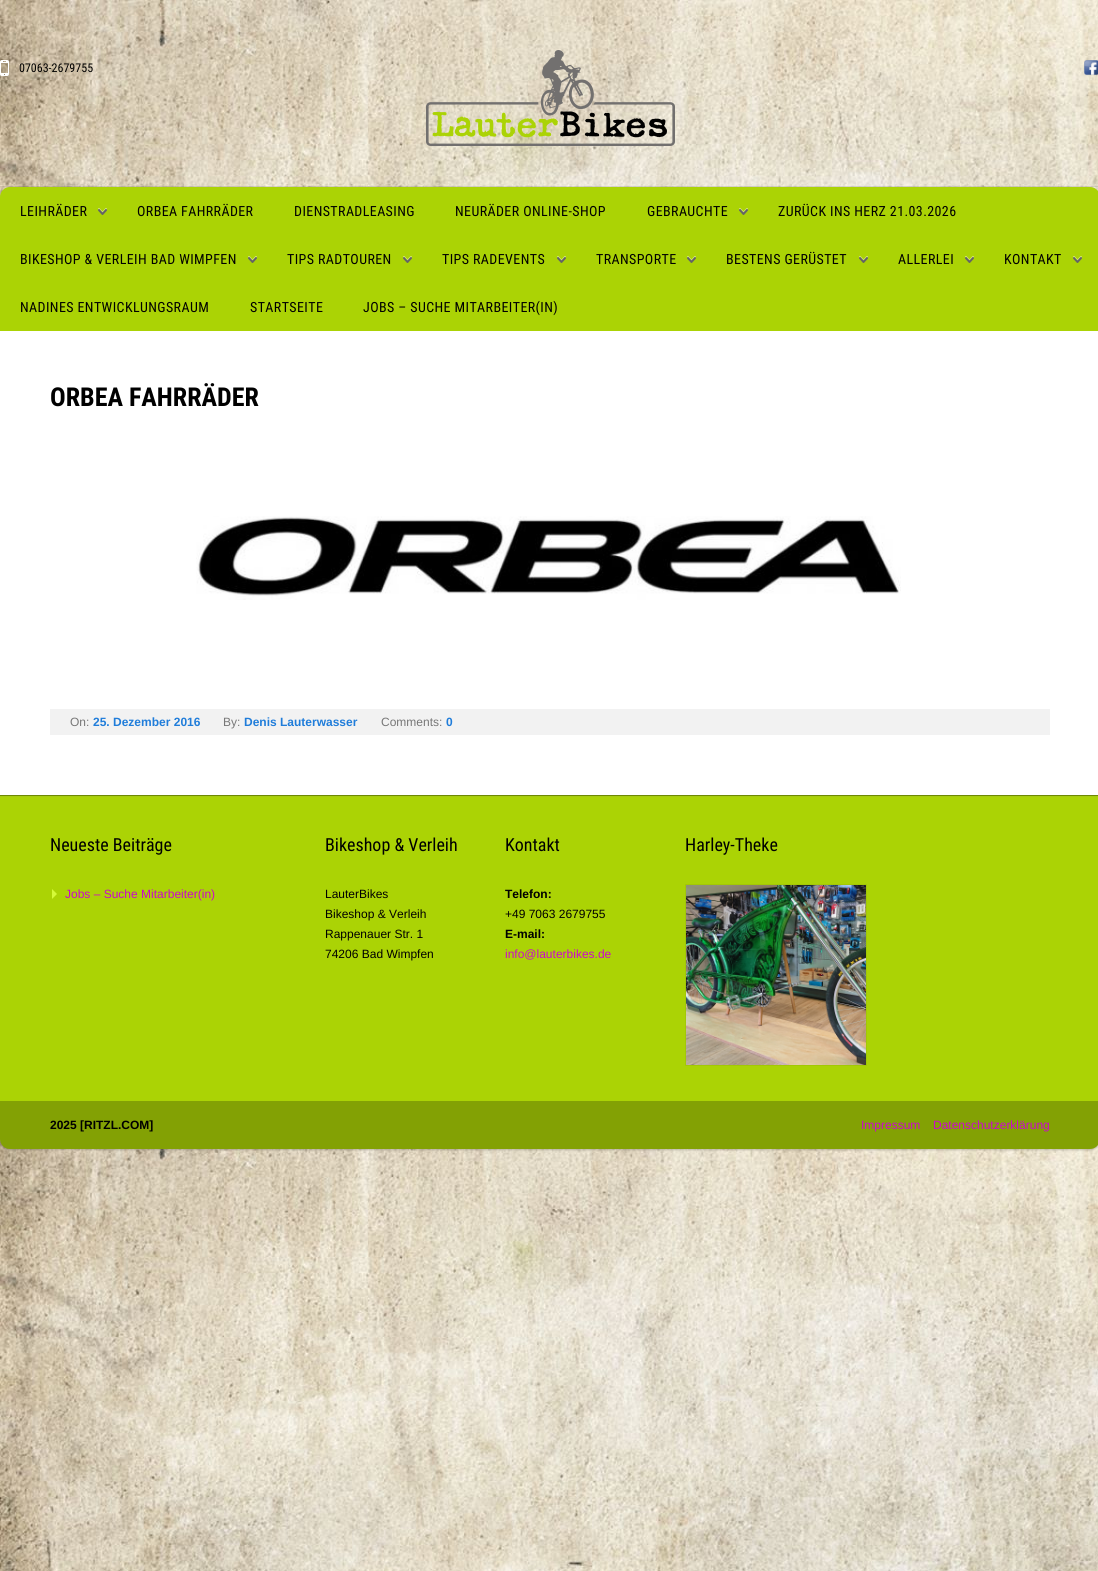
#include <cairo.h>
#include <math.h>
#include <stddef.h>

static cairo_t *ctx;

static void use_color(int r, int g, int b) {
    cairo_set_source_rgb(ctx, r / 255.0, g / 255.0, b / 255.0);
}

static void spaced_text(double x, double y, const char *s, double letter, double word) {
    cairo_move_to(ctx, x, y);
    while (*s) {
        char ch[5] = {0};
        int n = 0;
        do ch[n++] = *s++; while ((*s & 0xC0) == 0x80);
        cairo_show_text(ctx, ch);
        cairo_rel_move_to(ctx, letter + word * (*ch == ' '), 0);
    }
}

static void round_rect(double x, double y, double w, double h, double r) {
    cairo_new_sub_path(ctx);
    cairo_arc(ctx, x + w - r, y + h - r, r, 0, M_PI / 2);
    cairo_arc(ctx, x + r, y + h - r, r, M_PI / 2, M_PI);
    cairo_arc(ctx, x + r, y + r, r, M_PI, 1.5 * M_PI);
    cairo_arc(ctx, x + w - r, y + r, r, 1.5 * M_PI, 2 * M_PI);
    cairo_close_path(ctx);
}

static void shadow(double x, double y, double w, double h, double r, double blur, double alpha) {
    cairo_push_group_with_content(ctx, CAIRO_CONTENT_ALPHA);
    cairo_set_operator(ctx, CAIRO_OPERATOR_SOURCE);
    for (int i = 15; i >= -15 && fmin(w, h) + blur * i / 3 > 0; i -= 2) {
        double e = blur * i / 6;
        cairo_set_source_rgba(ctx, 0, 0, 0, alpha * erfc((i - 1) / 8.5) / 2);
        round_rect(x - e, y - e, w + 2 * e, h + 2 * e, fmax(0, fmin(r + e + blur * .6, fmin(w, h) / 2 + e)));
        cairo_fill(ctx);
    }
    cairo_pattern_t *soft = cairo_pop_group(ctx);
    cairo_mask(ctx, soft);
    cairo_pattern_destroy(soft);
}

static void picture(const char *path, double x, double y, double w, double h) {
    cairo_surface_t *image = cairo_image_surface_create_from_png(path);
    cairo_save(ctx);
    cairo_set_source_surface(ctx, image, x, y);
    cairo_rectangle(ctx, x, y, w, h);
    cairo_fill(ctx);
    cairo_restore(ctx);
    cairo_surface_destroy(image);
}

int main(void) {
    cairo_surface_t *surface = cairo_image_surface_create(CAIRO_FORMAT_RGB24, 1098, 1571);
    ctx = cairo_create(surface);
    cairo_font_options_t *options = cairo_font_options_create();
    cairo_font_options_set_hint_metrics(options, CAIRO_HINT_METRICS_OFF);
    cairo_font_options_set_hint_style(options, CAIRO_HINT_STYLE_NONE);
    cairo_set_font_options(ctx, options);
    cairo_set_miter_limit(ctx, 4);
    use_color(255, 255, 255);
    cairo_paint(ctx);
    picture("img1.png", 0, 0, 1098, 1571);
    use_color(0, 0, 0);
    shadow(0, 188, 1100, 962, 10, 1, 0.2);
    cairo_set_source_rgba(ctx, 0, 0, 0, 0.1);
    cairo_rectangle(ctx, 0, 186, 1098, 1);
    cairo_fill(ctx);
    picture("img2.png", 0, 60, 9, 16);
    cairo_select_font_face(ctx, "Roboto Condensed", CAIRO_FONT_SLANT_NORMAL, CAIRO_FONT_WEIGHT_NORMAL);
    cairo_set_font_size(ctx, 12);
    use_color(0, 0, 0);
    cairo_move_to(ctx, 19, 72);
    cairo_show_text(ctx, "07063-2679755");
    picture("img3.png", 426, 50, 249, 96);
    picture("img4.png", 1084, 60, 14, 16);
    use_color(171, 211, 5);
    cairo_new_path(ctx);
    cairo_move_to(ctx, 10, 187);
    cairo_line_to(ctx, 1090, 187);
    cairo_curve_to(ctx, 1095.5, 187, 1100, 191.5, 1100, 197);
    cairo_line_to(ctx, 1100, 331);
    cairo_line_to(ctx, 0, 331);
    cairo_line_to(ctx, 0, 197);
    cairo_curve_to(ctx, 0, 191.5, 4.5, 187, 10, 187);
    cairo_close_path(ctx);
    cairo_fill(ctx);
    picture("img5.png", 98, 208, 9, 7);
    cairo_set_font_size(ctx, 14);
    use_color(0, 0, 0);
    spaced_text(20, 216, "LEIHRÄDER", 0.4, 0);
    spaced_text(137, 216, "ORBEA FAHRRÄDER", 0.4, 0);
    spaced_text(294, 216, "DIENSTRADLEASING", 0.4, 0);
    spaced_text(455, 216, "NEURÄDER ONLINE-SHOP", 0.4, 0);
    picture("img5.png", 739, 208, 9, 7);
    spaced_text(647, 216, "GEBRAUCHTE", 0.4, 0);
    spaced_text(778, 216, "ZURÜCK INS HERZ 21.03.2026", 0.4, 0);
    picture("img5.png", 248, 256, 9, 7);
    spaced_text(20, 264, "BIKESHOP & VERLEIH BAD WIMPFEN", 0.4, 0);
    picture("img5.png", 403, 256, 9, 7);
    spaced_text(287, 264, "TIPS RADTOUREN", 0.4, 0);
    picture("img5.png", 557, 256, 9, 7);
    spaced_text(442, 264, "TIPS RADEVENTS", 0.4, 0);
    picture("img5.png", 687, 256, 9, 7);
    spaced_text(596, 264, "TRANSPORTE", 0.4, 0);
    picture("img5.png", 859, 256, 9, 7);
    spaced_text(726, 264, "BESTENS GERÜSTET", 0.4, 0);
    picture("img5.png", 965, 256, 9, 7);
    spaced_text(898, 264, "ALLERLEI", 0.4, 0);
    picture("img5.png", 1073, 256, 9, 7);
    spaced_text(1004, 264, "KONTAKT", 0.4, 0);
    spaced_text(20, 312, "NADINES ENTWICKLUNGSRAUM", 0.4, 0);
    spaced_text(250, 312, "STARTSEITE", 0.4, 0);
    spaced_text(363, 312, "JOBS – SUCHE MITARBEITER(IN)", 0.4, 0);
    use_color(255, 255, 255);
    cairo_rectangle(ctx, 0, 331, 1098, 464);
    cairo_fill(ctx);
    cairo_select_font_face(ctx, "Roboto Condensed", CAIRO_FONT_SLANT_NORMAL, CAIRO_FONT_WEIGHT_BOLD);
    cairo_set_font_size(ctx, 26);
    use_color(0, 0, 0);
    cairo_move_to(ctx, 50, 406);
    cairo_show_text(ctx, "ORBEA FAHRRÄDER");
    picture("img6.png", 196, 516, 705, 84);
    use_color(242, 242, 242);
    cairo_rectangle(ctx, 50, 709, 1000, 26);
    cairo_fill(ctx);
    cairo_select_font_face(ctx, "Liberation Sans", CAIRO_FONT_SLANT_NORMAL, CAIRO_FONT_WEIGHT_NORMAL);
    cairo_set_font_size(ctx, 12);
    use_color(119, 119, 119);
    cairo_move_to(ctx, 70, 726);
    cairo_show_text(ctx, "On:");
    cairo_select_font_face(ctx, "Liberation Sans", CAIRO_FONT_SLANT_NORMAL, CAIRO_FONT_WEIGHT_BOLD);
    use_color(32, 125, 218);
    cairo_move_to(ctx, 93, 726);
    cairo_show_text(ctx, "25. Dezember 2016");
    cairo_select_font_face(ctx, "Liberation Sans", CAIRO_FONT_SLANT_NORMAL, CAIRO_FONT_WEIGHT_NORMAL);
    use_color(119, 119, 119);
    cairo_move_to(ctx, 223, 726);
    cairo_show_text(ctx, "By:");
    cairo_select_font_face(ctx, "Liberation Sans", CAIRO_FONT_SLANT_NORMAL, CAIRO_FONT_WEIGHT_BOLD);
    use_color(32, 125, 218);
    cairo_move_to(ctx, 244, 726);
    cairo_show_text(ctx, "Denis Lauterwasser");
    cairo_select_font_face(ctx, "Liberation Sans", CAIRO_FONT_SLANT_NORMAL, CAIRO_FONT_WEIGHT_NORMAL);
    use_color(119, 119, 119);
    cairo_move_to(ctx, 381, 726);
    cairo_show_text(ctx, "Comments:");
    cairo_select_font_face(ctx, "Liberation Sans", CAIRO_FONT_SLANT_NORMAL, CAIRO_FONT_WEIGHT_BOLD);
    use_color(32, 125, 218);
    cairo_move_to(ctx, 446, 726);
    cairo_show_text(ctx, "0");
    use_color(171, 211, 5);
    cairo_rectangle(ctx, 0, 797, 1098, 304);
    cairo_fill(ctx);
    use_color(166, 202, 17);
    cairo_rectangle(ctx, 0, 796, 1098, 1);
    cairo_fill(ctx);
    use_color(110, 136, 3);
    cairo_rectangle(ctx, 0, 795, 1098, 1);
    cairo_fill(ctx);
    cairo_select_font_face(ctx, "Roboto Condensed", CAIRO_FONT_SLANT_NORMAL, CAIRO_FONT_WEIGHT_NORMAL);
    cairo_set_font_size(ctx, 18);
    use_color(0, 0, 0);
    cairo_move_to(ctx, 50, 851);
    cairo_show_text(ctx, "Neueste Beiträge");
    use_color(213, 250, 57);
    cairo_new_path(ctx);
    cairo_move_to(ctx, 52, 899);
    cairo_line_to(ctx, 52, 889);
    cairo_line_to(ctx, 57, 894);
    cairo_close_path(ctx);
    cairo_fill(ctx);
    cairo_select_font_face(ctx, "Liberation Sans", CAIRO_FONT_SLANT_NORMAL, CAIRO_FONT_WEIGHT_NORMAL);
    cairo_set_font_size(ctx, 12);
    use_color(204, 8, 204);
    cairo_move_to(ctx, 65, 898);
    cairo_show_text(ctx, "Jobs – Suche Mitarbeiter(in)");
    cairo_select_font_face(ctx, "Roboto Condensed", CAIRO_FONT_SLANT_NORMAL, CAIRO_FONT_WEIGHT_NORMAL);
    cairo_set_font_size(ctx, 18);
    use_color(0, 0, 0);
    cairo_move_to(ctx, 325, 851);
    cairo_show_text(ctx, "Bikeshop & Verleih");
    cairo_select_font_face(ctx, "Liberation Sans", CAIRO_FONT_SLANT_NORMAL, CAIRO_FONT_WEIGHT_NORMAL);
    cairo_set_font_size(ctx, 12);
    cairo_move_to(ctx, 325, 898);
    cairo_show_text(ctx, "LauterBikes");
    cairo_move_to(ctx, 325, 918);
    cairo_show_text(ctx, "Bikeshop & Verleih");
    cairo_move_to(ctx, 325, 938);
    cairo_show_text(ctx, "Rappenauer Str. 1");
    cairo_move_to(ctx, 325, 958);
    cairo_show_text(ctx, "74206 Bad Wimpfen");
    cairo_select_font_face(ctx, "Roboto Condensed", CAIRO_FONT_SLANT_NORMAL, CAIRO_FONT_WEIGHT_NORMAL);
    cairo_set_font_size(ctx, 18);
    cairo_move_to(ctx, 505, 851);
    cairo_show_text(ctx, "Kontakt");
    cairo_select_font_face(ctx, "Liberation Sans", CAIRO_FONT_SLANT_NORMAL, CAIRO_FONT_WEIGHT_BOLD);
    cairo_set_font_size(ctx, 12);
    cairo_move_to(ctx, 505, 898);
    cairo_show_text(ctx, "Telefon:");
    cairo_select_font_face(ctx, "Liberation Sans", CAIRO_FONT_SLANT_NORMAL, CAIRO_FONT_WEIGHT_NORMAL);
    cairo_move_to(ctx, 505, 918);
    cairo_show_text(ctx, "+49 7063 2679755");
    cairo_select_font_face(ctx, "Liberation Sans", CAIRO_FONT_SLANT_NORMAL, CAIRO_FONT_WEIGHT_BOLD);
    cairo_move_to(ctx, 505, 938);
    cairo_show_text(ctx, "E-mail:");
    cairo_select_font_face(ctx, "Liberation Sans", CAIRO_FONT_SLANT_NORMAL, CAIRO_FONT_WEIGHT_NORMAL);
    use_color(204, 8, 204);
    cairo_move_to(ctx, 505, 958);
    cairo_show_text(ctx, "info@lauterbikes.de");
    cairo_select_font_face(ctx, "Roboto Condensed", CAIRO_FONT_SLANT_NORMAL, CAIRO_FONT_WEIGHT_NORMAL);
    cairo_set_font_size(ctx, 18);
    use_color(0, 0, 0);
    cairo_move_to(ctx, 685, 851);
    cairo_show_text(ctx, "Harley-Theke");
    cairo_rectangle(ctx, 685.5, 884.5, 181, 181);
    use_color(162, 200, 5);
    cairo_set_line_width(ctx, 1);
    cairo_stroke(ctx);
    picture("img7.png", 686, 885, 180, 180);
    use_color(131, 161, 4);
    cairo_new_path(ctx);
    cairo_move_to(ctx, 0, 1101);
    cairo_line_to(ctx, 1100, 1101);
    cairo_line_to(ctx, 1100, 1139);
    cairo_curve_to(ctx, 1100, 1144.5, 1095.5, 1149, 1090, 1149);
    cairo_line_to(ctx, 10, 1149);
    cairo_curve_to(ctx, 4.5, 1149, 0, 1144.5, 0, 1139);
    cairo_close_path(ctx);
    cairo_fill(ctx);
    cairo_select_font_face(ctx, "Liberation Sans", CAIRO_FONT_SLANT_NORMAL, CAIRO_FONT_WEIGHT_BOLD);
    cairo_set_font_size(ctx, 12);
    use_color(0, 0, 0);
    cairo_move_to(ctx, 50, 1129);
    cairo_show_text(ctx, "2025 [RITZL.COM]");
    cairo_select_font_face(ctx, "Liberation Sans", CAIRO_FONT_SLANT_NORMAL, CAIRO_FONT_WEIGHT_NORMAL);
    use_color(204, 8, 204);
    cairo_move_to(ctx, 861, 1129);
    cairo_show_text(ctx, "Impressum");
    cairo_move_to(ctx, 933, 1129);
    cairo_show_text(ctx, "Datenschutzerklärung");
    cairo_surface_write_to_png(surface, "result.png");
    cairo_font_options_destroy(options);
    cairo_destroy(ctx);
    cairo_surface_destroy(surface);
    return 0;
}
